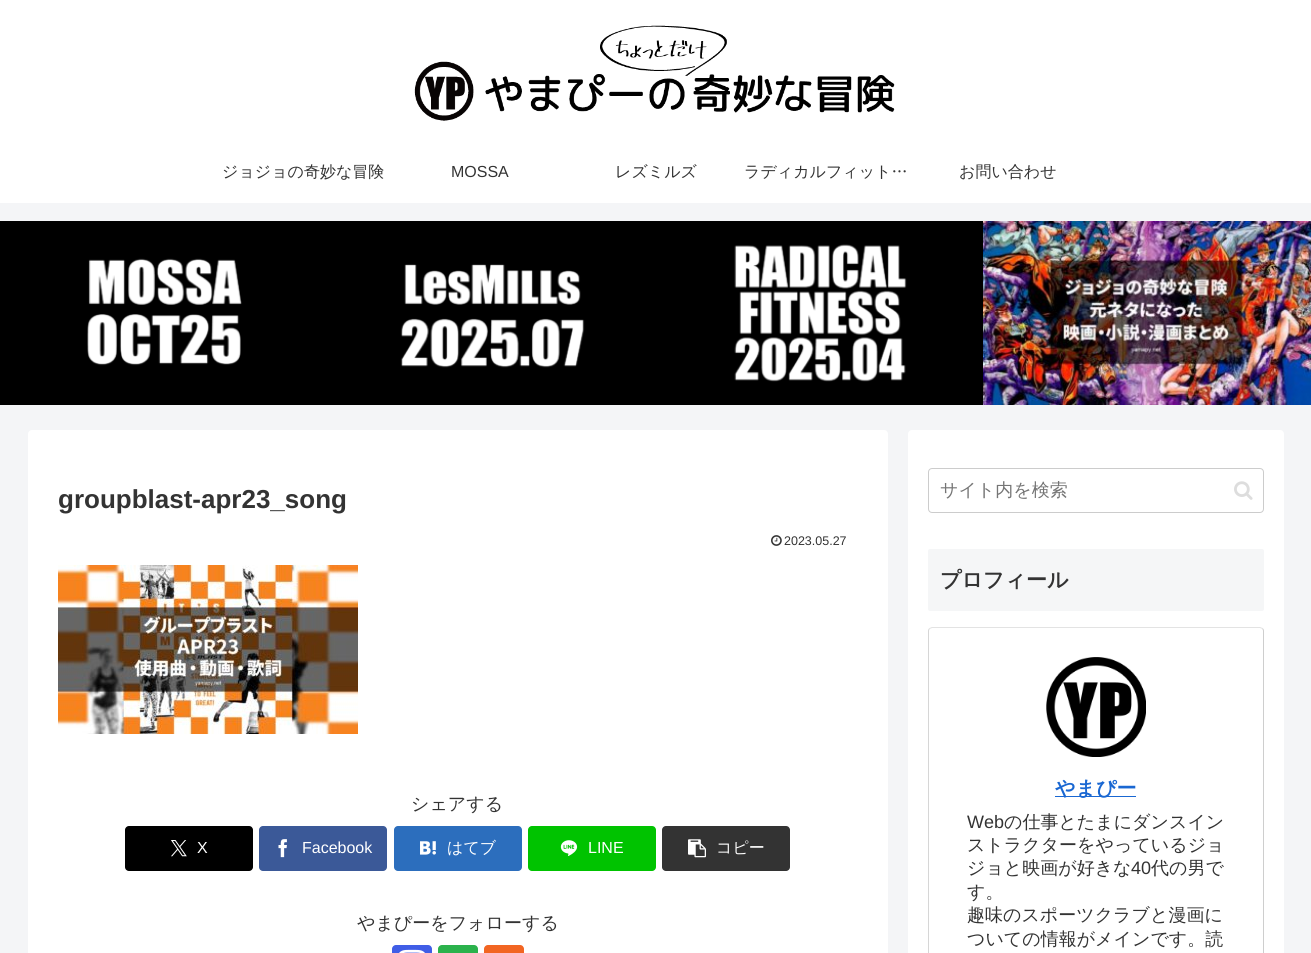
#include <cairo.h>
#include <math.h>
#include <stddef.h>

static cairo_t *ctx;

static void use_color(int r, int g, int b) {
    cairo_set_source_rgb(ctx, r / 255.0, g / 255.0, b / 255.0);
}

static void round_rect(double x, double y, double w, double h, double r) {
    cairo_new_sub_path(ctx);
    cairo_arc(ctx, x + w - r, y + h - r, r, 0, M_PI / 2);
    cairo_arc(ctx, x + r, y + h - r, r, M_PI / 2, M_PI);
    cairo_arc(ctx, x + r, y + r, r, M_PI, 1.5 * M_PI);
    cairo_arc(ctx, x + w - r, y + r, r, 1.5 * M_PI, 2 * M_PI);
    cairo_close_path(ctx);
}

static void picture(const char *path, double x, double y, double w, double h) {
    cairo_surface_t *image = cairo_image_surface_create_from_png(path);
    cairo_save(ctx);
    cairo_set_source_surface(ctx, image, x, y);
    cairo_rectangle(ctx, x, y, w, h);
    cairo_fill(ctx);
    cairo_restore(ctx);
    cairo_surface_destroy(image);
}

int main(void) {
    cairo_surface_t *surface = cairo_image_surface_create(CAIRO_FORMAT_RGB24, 1311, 953);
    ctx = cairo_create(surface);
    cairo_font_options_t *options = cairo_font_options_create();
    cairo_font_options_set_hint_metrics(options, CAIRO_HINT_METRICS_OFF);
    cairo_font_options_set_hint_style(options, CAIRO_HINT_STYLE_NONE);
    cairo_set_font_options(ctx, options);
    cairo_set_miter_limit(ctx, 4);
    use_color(244, 245, 247);
    cairo_paint(ctx);
    use_color(255, 255, 255);
    cairo_rectangle(ctx, 0, 0, 1311, 203);
    cairo_fill(ctx);
    picture("img1.png", 414, 25, 481, 96);
    cairo_select_font_face(ctx, "WenQuanYi Zen Hei Medium", CAIRO_FONT_SLANT_NORMAL, CAIRO_FONT_WEIGHT_NORMAL);
    cairo_set_font_size(ctx, 16);
    use_color(51, 51, 51);
    cairo_move_to(ctx, 222, 177);
    cairo_show_text(ctx, "ジョジョの奇妙な冒険");
    cairo_select_font_face(ctx, "Liberation Sans", CAIRO_FONT_SLANT_NORMAL, CAIRO_FONT_WEIGHT_NORMAL);
    cairo_move_to(ctx, 451, 177);
    cairo_show_text(ctx, "MOSSA");
    cairo_select_font_face(ctx, "WenQuanYi Zen Hei Medium", CAIRO_FONT_SLANT_NORMAL, CAIRO_FONT_WEIGHT_NORMAL);
    cairo_move_to(ctx, 615, 177);
    cairo_show_text(ctx, "レズミルズ");
    cairo_move_to(ctx, 744, 177);
    cairo_show_text(ctx, "ラディカルフィット…");
    cairo_move_to(ctx, 959, 177);
    cairo_show_text(ctx, "お問い合わせ");
    picture("img2.png", 0, 221, 328, 184);
    picture("img3.png", 328, 221, 328, 184);
    picture("img4.png", 656, 221, 327, 184);
    picture("img5.png", 983, 221, 328, 184);
    use_color(255, 255, 255);
    round_rect(28, 430, 860, 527, 4);
    cairo_fill(ctx);
    cairo_select_font_face(ctx, "Liberation Sans", CAIRO_FONT_SLANT_NORMAL, CAIRO_FONT_WEIGHT_BOLD);
    cairo_set_font_size(ctx, 26);
    use_color(51, 51, 51);
    cairo_move_to(ctx, 58, 508);
    cairo_show_text(ctx, "groupblast-apr23_song");
    picture("img6.png", 771, 535, 11, 11);
    cairo_select_font_face(ctx, "Liberation Sans", CAIRO_FONT_SLANT_NORMAL, CAIRO_FONT_WEIGHT_NORMAL);
    cairo_set_font_size(ctx, 12.5);
    cairo_move_to(ctx, 784, 545);
    cairo_show_text(ctx, "2023.05.27");
    picture("img7.png", 58, 565, 300, 169);
    cairo_select_font_face(ctx, "WenQuanYi Zen Hei Medium", CAIRO_FONT_SLANT_NORMAL, CAIRO_FONT_WEIGHT_NORMAL);
    cairo_set_font_size(ctx, 18);
    cairo_move_to(ctx, 411, 810);
    cairo_show_text(ctx, "シェアする");
    use_color(0, 0, 0);
    round_rect(125, 826, 128, 45, 4);
    cairo_fill(ctx);
    picture("img8.png", 171, 840, 16, 17);
    cairo_select_font_face(ctx, "Liberation Sans", CAIRO_FONT_SLANT_NORMAL, CAIRO_FONT_WEIGHT_NORMAL);
    cairo_set_font_size(ctx, 16);
    use_color(255, 255, 255);
    cairo_move_to(ctx, 197, 853);
    cairo_show_text(ctx, "X");
    use_color(59, 89, 152);
    round_rect(259, 826, 128, 45, 4);
    cairo_fill(ctx);
    picture("img9.png", 278, 839, 9, 19);
    use_color(255, 255, 255);
    cairo_move_to(ctx, 302, 853);
    cairo_show_text(ctx, "Facebook");
    use_color(44, 110, 189);
    round_rect(394, 826, 128, 45, 4);
    cairo_fill(ctx);
    picture("img10.png", 420, 841, 16, 14);
    cairo_select_font_face(ctx, "WenQuanYi Zen Hei Medium", CAIRO_FONT_SLANT_NORMAL, CAIRO_FONT_WEIGHT_NORMAL);
    use_color(255, 255, 255);
    cairo_move_to(ctx, 447, 853);
    cairo_show_text(ctx, "はてブ");
    use_color(0, 195, 0);
    round_rect(528, 826, 128, 45, 4);
    cairo_fill(ctx);
    picture("img11.png", 560, 840, 18, 16);
    cairo_select_font_face(ctx, "Liberation Sans", CAIRO_FONT_SLANT_NORMAL, CAIRO_FONT_WEIGHT_NORMAL);
    use_color(255, 255, 255);
    cairo_move_to(ctx, 588, 853);
    cairo_show_text(ctx, "LINE");
    use_color(51, 51, 51);
    round_rect(662, 826, 128, 45, 4);
    cairo_fill(ctx);
    picture("img12.png", 688, 839, 18, 19);
    cairo_select_font_face(ctx, "WenQuanYi Zen Hei Medium", CAIRO_FONT_SLANT_NORMAL, CAIRO_FONT_WEIGHT_NORMAL);
    use_color(255, 255, 255);
    cairo_move_to(ctx, 716, 853);
    cairo_show_text(ctx, "コピー");
    cairo_set_font_size(ctx, 18);
    use_color(51, 51, 51);
    cairo_move_to(ctx, 357, 929);
    cairo_show_text(ctx, "やまぴーをフォローする");
    use_color(64, 93, 230);
    round_rect(392, 945, 40, 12, 4);
    cairo_fill(ctx);
    picture("img13.png", 399, 949, 26, 4);
    use_color(43, 178, 76);
    round_rect(438, 945, 40, 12, 4);
    cairo_fill(ctx);
    use_color(242, 101, 34);
    round_rect(484, 945, 40, 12, 4);
    cairo_fill(ctx);
    use_color(255, 255, 255);
    round_rect(908, 430, 376, 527, 4);
    cairo_fill(ctx);
    round_rect(928.5, 468.5, 335, 44, 3.5);
    use_color(204, 204, 204);
    cairo_set_line_width(ctx, 1);
    cairo_stroke(ctx);
    use_color(117, 117, 117);
    cairo_move_to(ctx, 940, 496);
    cairo_show_text(ctx, "サイト内を検索");
    picture("img14.png", 1234, 481, 19, 19);
    use_color(245, 246, 247);
    round_rect(928, 549, 336, 62, 2);
    cairo_fill(ctx);
    cairo_select_font_face(ctx, "WenQuanYi Zen Hei", CAIRO_FONT_SLANT_NORMAL, CAIRO_FONT_WEIGHT_BOLD);
    cairo_set_font_size(ctx, 21);
    use_color(51, 51, 51);
    cairo_move_to(ctx, 940, 587);
    cairo_show_text(ctx, "プロフィール");
    cairo_new_path(ctx);
    cairo_move_to(ctx, 929.5, 628.5);
    cairo_line_to(ctx, 932, 627.5);
    cairo_line_to(ctx, 1260, 627.5);
    cairo_line_to(ctx, 1262.5, 628.5);
    use_color(227, 227, 227);
    cairo_stroke(ctx);
    cairo_new_path(ctx);
    cairo_move_to(ctx, 1262.5, 628.5);
    cairo_curve_to(ctx, 1263, 629, 1263.5, 630, 1263.5, 631);
    cairo_line_to(ctx, 1263.5, 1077);
    cairo_curve_to(ctx, 1263.5, 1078, 1263, 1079, 1262.5, 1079.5);
    use_color(206, 206, 206);
    cairo_stroke(ctx);
    cairo_new_path(ctx);
    cairo_move_to(ctx, 929.5, 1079.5);
    cairo_curve_to(ctx, 929, 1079, 928.5, 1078, 928.5, 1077);
    cairo_line_to(ctx, 928.5, 631);
    cairo_curve_to(ctx, 928.5, 630, 929, 629, 929.5, 628.5);
    use_color(214, 214, 214);
    cairo_stroke(ctx);
    picture("img15.png", 1046, 657, 100, 100);
    use_color(25, 103, 210);
    cairo_rectangle(ctx, 1055, 796, 81, 1);
    cairo_fill(ctx);
    cairo_set_font_size(ctx, 20);
    cairo_move_to(ctx, 1055, 795);
    cairo_show_text(ctx, "やまぴー");
    cairo_select_font_face(ctx, "Liberation Sans", CAIRO_FONT_SLANT_NORMAL, CAIRO_FONT_WEIGHT_NORMAL);
    cairo_set_font_size(ctx, 18);
    use_color(51, 51, 51);
    cairo_move_to(ctx, 967, 828);
    cairo_show_text(ctx, "Web");
    cairo_select_font_face(ctx, "WenQuanYi Zen Hei Medium", CAIRO_FONT_SLANT_NORMAL, CAIRO_FONT_WEIGHT_NORMAL);
    cairo_move_to(ctx, 1004, 828);
    cairo_show_text(ctx, "の仕事とたまにダンスイン");
    cairo_move_to(ctx, 967, 851);
    cairo_show_text(ctx, "ストラクターをやっているジョ");
    cairo_move_to(ctx, 967, 874);
    cairo_show_text(ctx, "ジョと映画が好きな");
    cairo_select_font_face(ctx, "Liberation Sans", CAIRO_FONT_SLANT_NORMAL, CAIRO_FONT_WEIGHT_NORMAL);
    cairo_move_to(ctx, 1131, 874);
    cairo_show_text(ctx, "40");
    cairo_select_font_face(ctx, "WenQuanYi Zen Hei Medium", CAIRO_FONT_SLANT_NORMAL, CAIRO_FONT_WEIGHT_NORMAL);
    cairo_move_to(ctx, 1151, 874);
    cairo_show_text(ctx, "代の男で");
    cairo_move_to(ctx, 967, 898);
    cairo_show_text(ctx, "す。");
    cairo_move_to(ctx, 967, 921);
    cairo_show_text(ctx, "趣味のスポーツクラブと漫画に");
    cairo_move_to(ctx, 967, 945);
    cairo_show_text(ctx, "ついての情報がメインです。読");
    cairo_surface_write_to_png(surface, "result.png");
    cairo_font_options_destroy(options);
    cairo_destroy(ctx);
    cairo_surface_destroy(surface);
    return 0;
}
